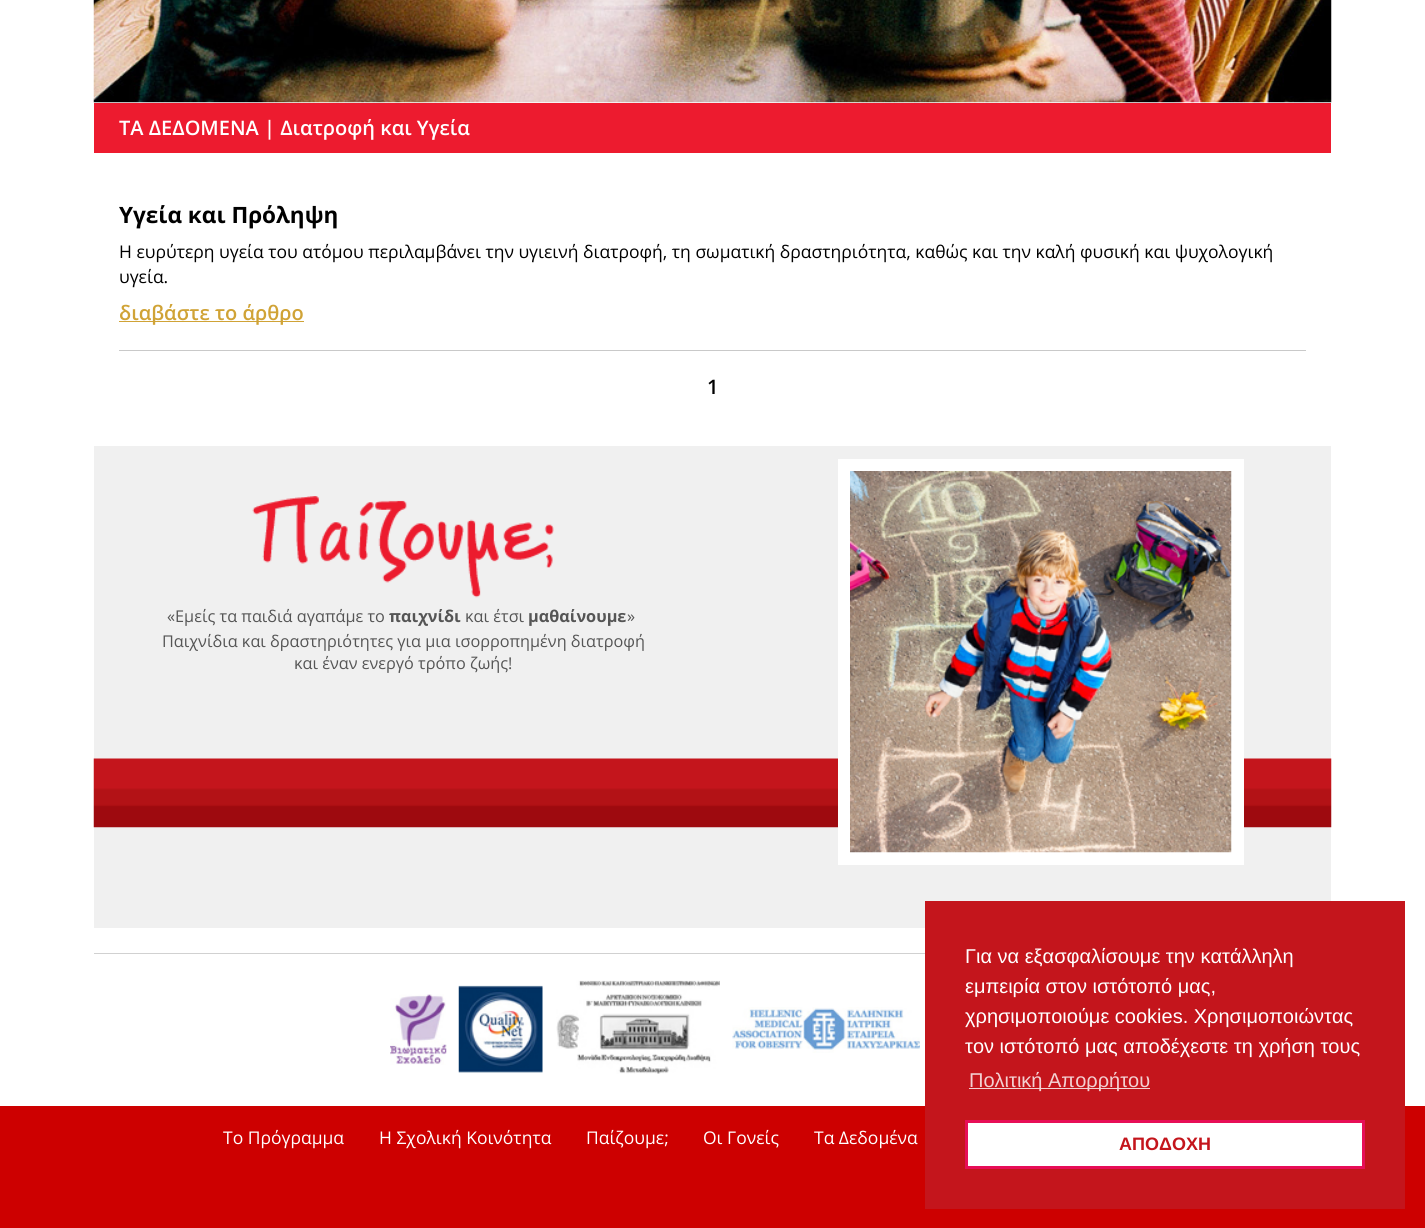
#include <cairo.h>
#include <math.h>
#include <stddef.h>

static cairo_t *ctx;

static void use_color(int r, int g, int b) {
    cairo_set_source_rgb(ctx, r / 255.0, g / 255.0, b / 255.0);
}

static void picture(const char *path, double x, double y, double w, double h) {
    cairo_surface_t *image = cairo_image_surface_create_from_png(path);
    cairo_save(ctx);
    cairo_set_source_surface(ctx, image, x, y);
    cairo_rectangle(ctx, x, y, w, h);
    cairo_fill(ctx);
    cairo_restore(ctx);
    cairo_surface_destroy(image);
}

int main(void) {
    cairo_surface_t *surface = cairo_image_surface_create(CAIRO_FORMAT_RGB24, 1425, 1228);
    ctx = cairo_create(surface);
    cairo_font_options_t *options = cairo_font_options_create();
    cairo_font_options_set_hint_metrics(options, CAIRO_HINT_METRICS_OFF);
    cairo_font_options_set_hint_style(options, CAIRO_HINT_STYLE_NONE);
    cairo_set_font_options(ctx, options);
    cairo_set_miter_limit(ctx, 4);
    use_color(255, 255, 255);
    cairo_paint(ctx);
    picture("img1.png", 93, 0, 1239, 103);
    use_color(237, 27, 47);
    cairo_rectangle(ctx, 94, 103, 1237, 50);
    cairo_fill(ctx);
    cairo_select_font_face(ctx, "Open Sans SemiBold", CAIRO_FONT_SLANT_NORMAL, CAIRO_FONT_WEIGHT_NORMAL);
    cairo_set_font_size(ctx, 20);
    use_color(255, 255, 255);
    cairo_move_to(ctx, 119, 135);
    cairo_show_text(ctx, "ΤΑ ΔΕΔΟΜΕΝΑ | Διατροφή και Υγεία");
    use_color(201, 201, 201);
    cairo_rectangle(ctx, 119, 350, 1187, 1);
    cairo_fill(ctx);
    cairo_select_font_face(ctx, "Open Sans", CAIRO_FONT_SLANT_NORMAL, CAIRO_FONT_WEIGHT_BOLD);
    cairo_set_font_size(ctx, 22.5);
    use_color(0, 0, 0);
    cairo_move_to(ctx, 119, 223);
    cairo_show_text(ctx, "Υγεία και Πρόληψη");
    cairo_select_font_face(ctx, "Open Sans", CAIRO_FONT_SLANT_NORMAL, CAIRO_FONT_WEIGHT_NORMAL);
    cairo_set_font_size(ctx, 17.5);
    cairo_move_to(ctx, 119, 258);
    cairo_show_text(ctx, "Η ευρύτερη υγεία του ατόμου περιλαμβάνει την υγιεινή διατροφή, τη σωματική δραστηριότητα, καθώς και την καλή φυσική και ψυχολογική");
    cairo_move_to(ctx, 119, 283);
    cairo_show_text(ctx, "υγεία.");
    use_color(208, 163, 54);
    cairo_rectangle(ctx, 119, 321, 185, 1);
    cairo_fill(ctx);
    cairo_select_font_face(ctx, "Open Sans SemiBold", CAIRO_FONT_SLANT_NORMAL, CAIRO_FONT_WEIGHT_NORMAL);
    cairo_set_font_size(ctx, 20);
    cairo_move_to(ctx, 119, 320);
    cairo_show_text(ctx, "διαβάστε το άρθρο");
    use_color(0, 0, 0);
    cairo_move_to(ctx, 707, 394);
    cairo_show_text(ctx, "1");
    use_color(240, 240, 240);
    cairo_rectangle(ctx, 94, 446, 1237, 482);
    cairo_fill(ctx);
    picture("img2.png", 252, 496, 302, 102);
    cairo_select_font_face(ctx, "Open Sans", CAIRO_FONT_SLANT_NORMAL, CAIRO_FONT_WEIGHT_NORMAL);
    cairo_set_font_size(ctx, 16.25);
    use_color(85, 85, 85);
    cairo_move_to(ctx, 167, 622);
    cairo_show_text(ctx, "«Εμείς τα παιδιά αγαπάμε το");
    cairo_select_font_face(ctx, "Open Sans", CAIRO_FONT_SLANT_NORMAL, CAIRO_FONT_WEIGHT_BOLD);
    cairo_move_to(ctx, 389, 622);
    cairo_show_text(ctx, "παιχνίδι");
    cairo_select_font_face(ctx, "Open Sans", CAIRO_FONT_SLANT_NORMAL, CAIRO_FONT_WEIGHT_NORMAL);
    cairo_move_to(ctx, 465, 622);
    cairo_show_text(ctx, "και έτσι");
    cairo_select_font_face(ctx, "Open Sans", CAIRO_FONT_SLANT_NORMAL, CAIRO_FONT_WEIGHT_BOLD);
    cairo_move_to(ctx, 528, 622);
    cairo_show_text(ctx, "μαθαίνουμε");
    cairo_select_font_face(ctx, "Open Sans", CAIRO_FONT_SLANT_NORMAL, CAIRO_FONT_WEIGHT_NORMAL);
    cairo_move_to(ctx, 627, 622);
    cairo_show_text(ctx, "»");
    cairo_move_to(ctx, 162, 647);
    cairo_show_text(ctx, "Παιχνίδια και δραστηριότητες για μια ισορροπημένη διατροφή");
    cairo_move_to(ctx, 294, 669);
    cairo_show_text(ctx, "και έναν ενεργό τρόπο ζωής!");
    picture("img4.png", 93, 758, 1239, 70);
    cairo_rectangle(ctx, 844.5, 465.5, 393, 393);
    use_color(255, 255, 255);
    cairo_set_line_width(ctx, 13);
    cairo_stroke(ctx);
    picture("img3.png", 850, 471, 382, 382);
    use_color(209, 209, 209);
    cairo_rectangle(ctx, 94, 953, 831, 1);
    cairo_fill(ctx);
    picture("img5.png", 390, 994, 57, 71);
    picture("img6.png", 458, 985, 85, 88);
    picture("img7.png", 556, 980, 164, 94);
    picture("img8.png", 732, 1007, 188, 46);
    use_color(205, 0, 0);
    cairo_rectangle(ctx, 0, 1106, 1425, 122);
    cairo_fill(ctx);
    cairo_set_font_size(ctx, 17.5);
    use_color(255, 255, 255);
    cairo_move_to(ctx, 223, 1144);
    cairo_show_text(ctx, "Το Πρόγραμμα");
    cairo_move_to(ctx, 379, 1144);
    cairo_show_text(ctx, "H Σχολική Κοινότητα");
    cairo_move_to(ctx, 586, 1144);
    cairo_show_text(ctx, "Παίζουμε;");
    cairo_move_to(ctx, 703, 1144);
    cairo_show_text(ctx, "Οι Γονείς");
    cairo_move_to(ctx, 814, 1144);
    cairo_show_text(ctx, "Τα Δεδομένα");
    use_color(196, 21, 28);
    cairo_rectangle(ctx, 925, 901, 480, 308);
    cairo_fill(ctx);
    cairo_select_font_face(ctx, "Liberation Sans", CAIRO_FONT_SLANT_NORMAL, CAIRO_FONT_WEIGHT_NORMAL);
    cairo_set_font_size(ctx, 20);
    use_color(255, 255, 255);
    cairo_move_to(ctx, 965, 963);
    cairo_show_text(ctx, "Για να εξασφαλίσουμε την κατάλληλη");
    cairo_move_to(ctx, 965, 993);
    cairo_show_text(ctx, "εμπειρία στον ιστότοπό μας,");
    cairo_move_to(ctx, 965, 1023);
    cairo_show_text(ctx, "χρησιμοποιούμε cookies. Χρησιμοποιώντας");
    cairo_move_to(ctx, 965, 1053);
    cairo_show_text(ctx, "τον ιστότοπό μας αποδέχεστε τη χρήση τους");
    use_color(243, 208, 210);
    cairo_rectangle(ctx, 969, 1088, 181, 1);
    cairo_fill(ctx);
    cairo_move_to(ctx, 969, 1087);
    cairo_show_text(ctx, "Πολιτική Απορρήτου");
    use_color(255, 255, 255);
    cairo_rectangle(ctx, 966.5, 1121.5, 397, 46);
    cairo_fill_preserve(ctx);
    use_color(231, 14, 87);
    cairo_set_line_width(ctx, 3);
    cairo_stroke(ctx);
    cairo_select_font_face(ctx, "Liberation Sans", CAIRO_FONT_SLANT_NORMAL, CAIRO_FONT_WEIGHT_BOLD);
    cairo_set_font_size(ctx, 18);
    use_color(196, 21, 28);
    cairo_move_to(ctx, 1119, 1150);
    cairo_show_text(ctx, "ΑΠΟΔΟΧΗ");
    cairo_surface_write_to_png(surface, "result.png");
    cairo_font_options_destroy(options);
    cairo_destroy(ctx);
    cairo_surface_destroy(surface);
    return 0;
}
